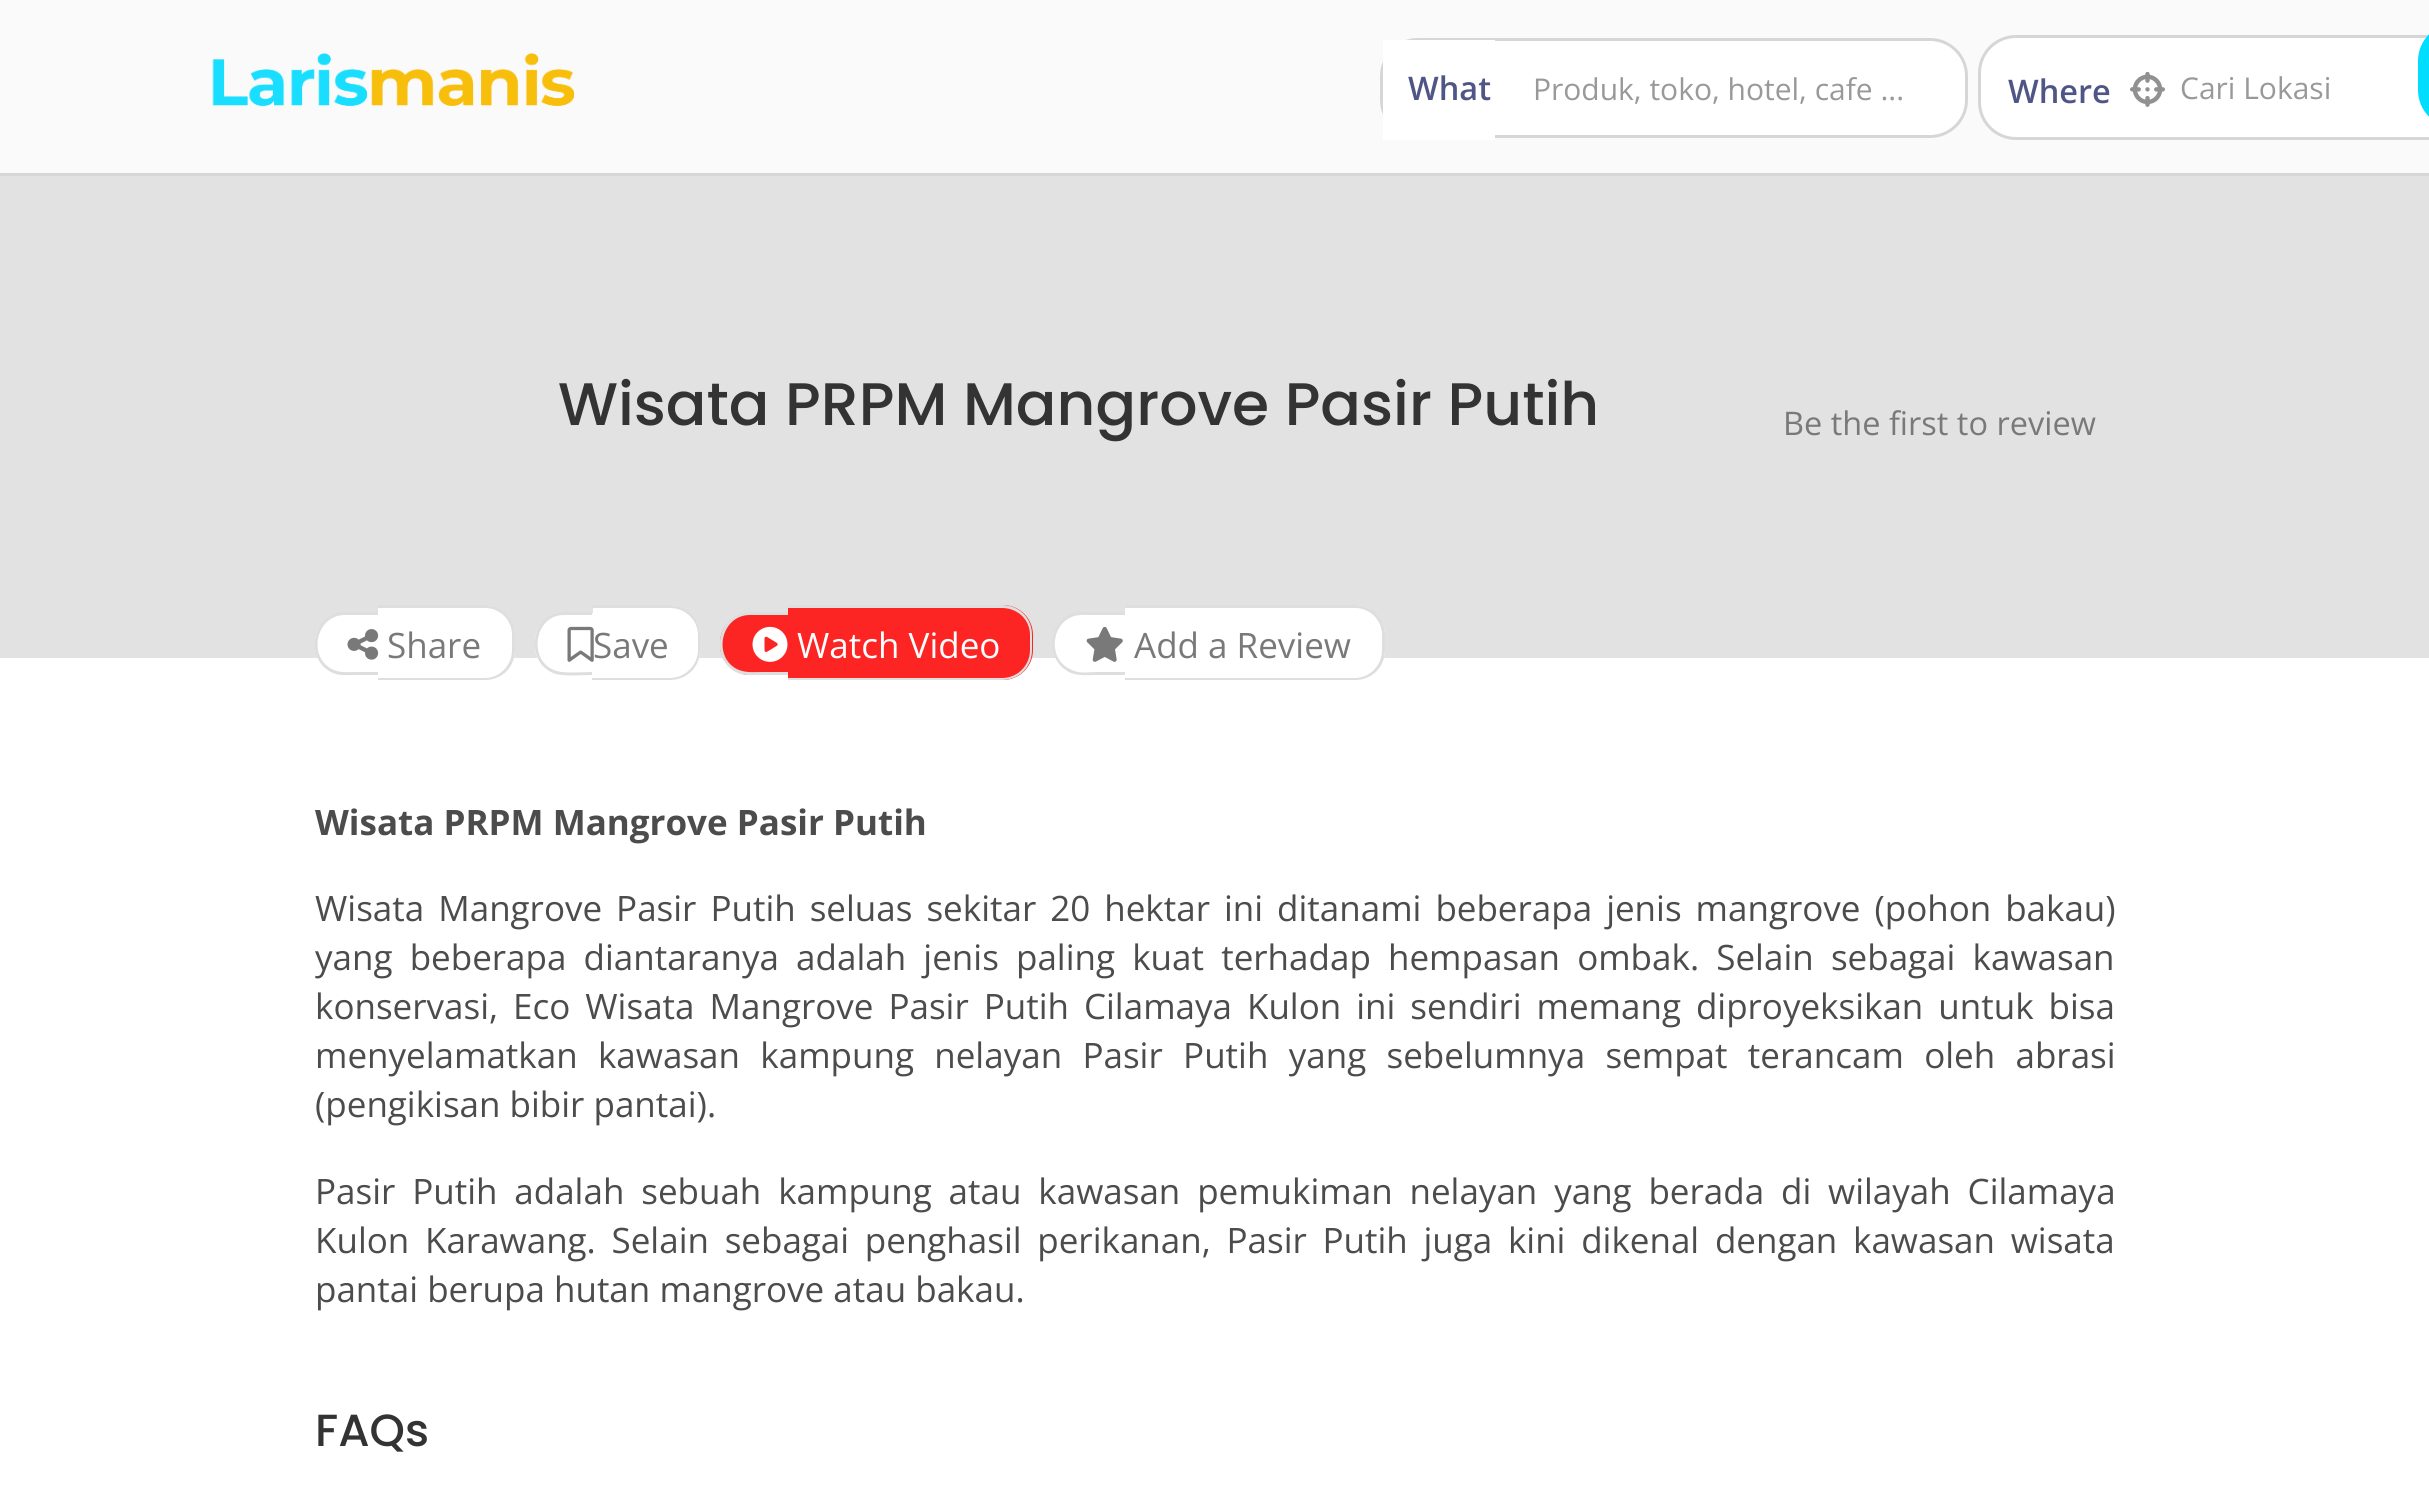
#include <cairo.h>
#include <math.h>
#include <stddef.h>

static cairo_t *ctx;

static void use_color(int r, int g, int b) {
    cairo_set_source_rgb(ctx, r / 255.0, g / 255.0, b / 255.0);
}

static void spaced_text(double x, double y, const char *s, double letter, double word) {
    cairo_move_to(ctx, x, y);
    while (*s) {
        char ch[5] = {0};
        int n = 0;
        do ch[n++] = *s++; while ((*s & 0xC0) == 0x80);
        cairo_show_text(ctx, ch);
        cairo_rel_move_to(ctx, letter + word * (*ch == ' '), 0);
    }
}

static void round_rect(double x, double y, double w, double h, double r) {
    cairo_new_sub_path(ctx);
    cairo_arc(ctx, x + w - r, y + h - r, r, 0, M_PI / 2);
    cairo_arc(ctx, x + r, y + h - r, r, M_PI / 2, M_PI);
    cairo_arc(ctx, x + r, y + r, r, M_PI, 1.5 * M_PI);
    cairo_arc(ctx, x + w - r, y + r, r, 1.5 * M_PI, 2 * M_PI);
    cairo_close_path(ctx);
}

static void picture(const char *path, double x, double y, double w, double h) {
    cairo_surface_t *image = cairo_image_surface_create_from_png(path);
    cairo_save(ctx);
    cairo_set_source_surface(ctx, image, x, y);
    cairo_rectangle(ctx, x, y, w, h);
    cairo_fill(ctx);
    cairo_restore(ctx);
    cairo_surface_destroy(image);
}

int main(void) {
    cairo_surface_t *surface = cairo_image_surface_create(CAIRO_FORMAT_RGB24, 2429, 1488);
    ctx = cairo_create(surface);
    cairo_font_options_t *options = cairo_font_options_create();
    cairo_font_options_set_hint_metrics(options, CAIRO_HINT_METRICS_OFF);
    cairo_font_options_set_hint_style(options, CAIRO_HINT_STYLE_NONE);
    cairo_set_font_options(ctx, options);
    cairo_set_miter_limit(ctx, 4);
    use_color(255, 255, 255);
    cairo_paint(ctx);
    use_color(250, 250, 250);
    cairo_rectangle(ctx, 0, 0, 2429, 173);
    cairo_fill(ctx);
    use_color(214, 214, 214);
    cairo_rectangle(ctx, 0, 173, 2429, 3);
    cairo_fill(ctx);
    picture("img1.png", 212, 53, 363, 54);
    use_color(255, 255, 255);
    round_rect(1381.5, 39.5, 585, 97, 36.5);
    cairo_fill_preserve(ctx);
    use_color(214, 214, 214);
    cairo_set_line_width(ctx, 3);
    cairo_stroke(ctx);
    use_color(255, 255, 255);
    cairo_rectangle(ctx, 1383, 40, 112, 100);
    cairo_fill(ctx);
    cairo_select_font_face(ctx, "Open Sans SemiBold", CAIRO_FONT_SLANT_NORMAL, CAIRO_FONT_WEIGHT_NORMAL);
    cairo_set_font_size(ctx, 32.5);
    use_color(79, 86, 133);
    cairo_move_to(ctx, 1408, 100);
    cairo_show_text(ctx, "What");
    cairo_select_font_face(ctx, "Open Sans", CAIRO_FONT_SLANT_NORMAL, CAIRO_FONT_WEIGHT_NORMAL);
    cairo_set_font_size(ctx, 30);
    use_color(153, 153, 153);
    cairo_move_to(ctx, 1533, 100);
    cairo_show_text(ctx, "Produk, toko, hotel, cafe ...");
    use_color(255, 255, 255);
    round_rect(1979.5, 36.5, 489, 102, 36.5);
    cairo_fill_preserve(ctx);
    use_color(214, 214, 214);
    cairo_stroke(ctx);
    cairo_select_font_face(ctx, "Open Sans SemiBold", CAIRO_FONT_SLANT_NORMAL, CAIRO_FONT_WEIGHT_NORMAL);
    cairo_set_font_size(ctx, 32.5);
    use_color(79, 86, 133);
    cairo_move_to(ctx, 2008, 103);
    cairo_show_text(ctx, "Where");
    picture("img2.png", 2130, 71, 35, 36);
    cairo_select_font_face(ctx, "Open Sans", CAIRO_FONT_SLANT_NORMAL, CAIRO_FONT_WEIGHT_NORMAL);
    cairo_set_font_size(ctx, 30);
    use_color(153, 153, 153);
    cairo_move_to(ctx, 2180, 99);
    cairo_show_text(ctx, "Cari Lokasi");
    use_color(0, 221, 255);
    round_rect(2418, 23, 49, 105, 38);
    cairo_fill(ctx);
    use_color(226, 226, 226);
    cairo_rectangle(ctx, 0, 176, 2429, 482);
    cairo_fill(ctx);
    cairo_select_font_face(ctx, "Poppins Medium", CAIRO_FONT_SLANT_NORMAL, CAIRO_FONT_WEIGHT_NORMAL);
    cairo_set_font_size(ctx, 60);
    use_color(51, 51, 51);
    cairo_move_to(ctx, 558, 425);
    cairo_show_text(ctx, "Wisata PRPM Mangrove Pasir Putih");
    cairo_select_font_face(ctx, "Open Sans", CAIRO_FONT_SLANT_NORMAL, CAIRO_FONT_WEIGHT_NORMAL);
    cairo_set_font_size(ctx, 32.5);
    use_color(121, 121, 121);
    cairo_move_to(ctx, 1783, 435);
    cairo_show_text(ctx, "Be the first to review");
    use_color(255, 255, 255);
    cairo_new_path(ctx);
    cairo_move_to(ctx, 345, 613);
    cairo_line_to(ctx, 378, 613);
    cairo_line_to(ctx, 378, 675);
    cairo_line_to(ctx, 345, 675);
    cairo_curve_to(ctx, 328.5, 675, 315, 661.5, 315, 645);
    cairo_line_to(ctx, 315, 643);
    cairo_curve_to(ctx, 315, 626.5, 328.5, 613, 345, 613);
    cairo_close_path(ctx);
    cairo_fill(ctx);
    use_color(222, 222, 222);
    cairo_set_fill_rule(ctx, CAIRO_FILL_RULE_EVEN_ODD);
    cairo_new_path(ctx);
    cairo_move_to(ctx, 345, 612);
    cairo_line_to(ctx, 378, 612);
    cairo_line_to(ctx, 378, 675);
    cairo_line_to(ctx, 356, 675);
    cairo_curve_to(ctx, 348, 675, 340, 676, 333, 673);
    cairo_curve_to(ctx, 303, 660, 312, 612, 345, 612);
    cairo_close_path(ctx);
    cairo_move_to(ctx, 345, 615);
    cairo_line_to(ctx, 378, 615);
    cairo_line_to(ctx, 378, 672);
    cairo_line_to(ctx, 356, 672);
    cairo_curve_to(ctx, 349, 672, 341, 673, 334, 670);
    cairo_curve_to(ctx, 307, 659, 315, 615, 345, 615);
    cairo_close_path(ctx);
    cairo_fill(ctx);
    use_color(255, 255, 255);
    cairo_new_path(ctx);
    cairo_move_to(ctx, 378, 605);
    cairo_line_to(ctx, 485, 605);
    cairo_curve_to(ctx, 501.5, 605, 515, 618.5, 515, 635);
    cairo_line_to(ctx, 515, 650);
    cairo_curve_to(ctx, 515, 666.5, 501.5, 680, 485, 680);
    cairo_line_to(ctx, 378, 680);
    cairo_close_path(ctx);
    cairo_fill(ctx);
    use_color(222, 222, 222);
    cairo_new_path(ctx);
    cairo_move_to(ctx, 378, 605);
    cairo_line_to(ctx, 485, 605);
    cairo_curve_to(ctx, 502, 605, 515, 618, 515, 635);
    cairo_line_to(ctx, 515, 650);
    cairo_curve_to(ctx, 515, 667, 502, 680, 485, 680);
    cairo_line_to(ctx, 378, 680);
    cairo_close_path(ctx);
    cairo_move_to(ctx, 378, 608);
    cairo_line_to(ctx, 485, 608);
    cairo_curve_to(ctx, 500, 608, 512, 620, 512, 635);
    cairo_line_to(ctx, 512, 650);
    cairo_curve_to(ctx, 512, 665, 500, 678, 485, 678);
    cairo_line_to(ctx, 378, 678);
    cairo_close_path(ctx);
    cairo_fill(ctx);
    picture("img3.png", 347, 629, 32, 31);
    cairo_set_font_size(ctx, 35);
    use_color(121, 121, 121);
    cairo_move_to(ctx, 387, 658);
    cairo_show_text(ctx, "Share");
    use_color(255, 255, 255);
    cairo_new_path(ctx);
    cairo_move_to(ctx, 564, 613);
    cairo_line_to(ctx, 593, 613);
    cairo_line_to(ctx, 593, 675);
    cairo_line_to(ctx, 564, 675);
    cairo_curve_to(ctx, 548, 675, 535, 662, 535, 646);
    cairo_line_to(ctx, 535, 642);
    cairo_curve_to(ctx, 535, 626, 548, 613, 564, 613);
    cairo_close_path(ctx);
    cairo_fill(ctx);
    use_color(222, 222, 222);
    cairo_new_path(ctx);
    cairo_move_to(ctx, 564, 612);
    cairo_line_to(ctx, 592, 612);
    cairo_line_to(ctx, 592, 675);
    cairo_curve_to(ctx, 582, 675, 562, 677, 553, 673);
    cairo_curve_to(ctx, 524, 661, 531, 612, 564, 612);
    cairo_close_path(ctx);
    cairo_move_to(ctx, 564, 615);
    cairo_line_to(ctx, 592, 615);
    cairo_line_to(ctx, 592, 672);
    cairo_curve_to(ctx, 582, 672, 562, 674, 554, 670);
    cairo_curve_to(ctx, 528, 660, 534, 615, 564, 615);
    cairo_close_path(ctx);
    cairo_fill(ctx);
    use_color(255, 255, 255);
    cairo_new_path(ctx);
    cairo_move_to(ctx, 593, 605);
    cairo_line_to(ctx, 670, 605);
    cairo_curve_to(ctx, 686.5, 605, 700, 618.5, 700, 635);
    cairo_line_to(ctx, 700, 650);
    cairo_curve_to(ctx, 700, 666.5, 686.5, 680, 670, 680);
    cairo_line_to(ctx, 593, 680);
    cairo_close_path(ctx);
    cairo_fill(ctx);
    use_color(222, 222, 222);
    cairo_new_path(ctx);
    cairo_move_to(ctx, 592, 605);
    cairo_line_to(ctx, 670, 605);
    cairo_curve_to(ctx, 687, 605, 700, 618, 700, 635);
    cairo_line_to(ctx, 700, 650);
    cairo_curve_to(ctx, 700, 667, 687, 680, 670, 680);
    cairo_line_to(ctx, 592, 680);
    cairo_close_path(ctx);
    cairo_move_to(ctx, 592, 608);
    cairo_line_to(ctx, 670, 608);
    cairo_curve_to(ctx, 685, 608, 698, 620, 698, 635);
    cairo_line_to(ctx, 698, 650);
    cairo_curve_to(ctx, 698, 665, 685, 678, 670, 678);
    cairo_line_to(ctx, 592, 678);
    cairo_close_path(ctx);
    cairo_fill(ctx);
    picture("img4.png", 567, 626, 27, 36);
    use_color(121, 121, 121);
    cairo_move_to(ctx, 593, 658);
    cairo_show_text(ctx, "Save");
    use_color(253, 36, 36);
    cairo_new_path(ctx);
    cairo_move_to(ctx, 750, 613);
    cairo_line_to(ctx, 788, 613);
    cairo_line_to(ctx, 788, 675);
    cairo_line_to(ctx, 750, 675);
    cairo_curve_to(ctx, 733.5, 675, 720, 661.5, 720, 645);
    cairo_line_to(ctx, 720, 643);
    cairo_curve_to(ctx, 720, 626.5, 733.5, 613, 750, 613);
    cairo_close_path(ctx);
    cairo_fill(ctx);
    use_color(222, 222, 222);
    cairo_new_path(ctx);
    cairo_move_to(ctx, 750, 612);
    cairo_line_to(ctx, 788, 612);
    cairo_line_to(ctx, 788, 675);
    cairo_line_to(ctx, 762, 675);
    cairo_curve_to(ctx, 754, 675, 746, 676, 738, 673);
    cairo_curve_to(ctx, 708, 660, 717, 612, 750, 612);
    cairo_close_path(ctx);
    cairo_move_to(ctx, 750, 615);
    cairo_line_to(ctx, 788, 615);
    cairo_line_to(ctx, 788, 672);
    cairo_line_to(ctx, 762, 672);
    cairo_curve_to(ctx, 755, 672, 747, 673, 739, 670);
    cairo_curve_to(ctx, 712, 659, 720, 615, 750, 615);
    cairo_close_path(ctx);
    cairo_fill(ctx);
    use_color(253, 36, 36);
    cairo_new_path(ctx);
    cairo_move_to(ctx, 788, 605);
    cairo_line_to(ctx, 1003, 605);
    cairo_curve_to(ctx, 1019.5, 605, 1033, 618.5, 1033, 635);
    cairo_line_to(ctx, 1033, 650);
    cairo_curve_to(ctx, 1033, 666.5, 1019.5, 680, 1003, 680);
    cairo_line_to(ctx, 788, 680);
    cairo_close_path(ctx);
    cairo_fill(ctx);
    use_color(222, 222, 222);
    cairo_new_path(ctx);
    cairo_move_to(ctx, 788, 605);
    cairo_line_to(ctx, 1002, 605);
    cairo_curve_to(ctx, 1019, 605, 1032, 618, 1032, 635);
    cairo_line_to(ctx, 1032, 650);
    cairo_curve_to(ctx, 1032, 667, 1019, 680, 1002, 680);
    cairo_line_to(ctx, 788, 680);
    cairo_close_path(ctx);
    cairo_move_to(ctx, 788, 608);
    cairo_line_to(ctx, 1002, 608);
    cairo_curve_to(ctx, 1018, 608, 1030, 620, 1030, 635);
    cairo_line_to(ctx, 1030, 650);
    cairo_curve_to(ctx, 1030, 665, 1018, 678, 1002, 678);
    cairo_line_to(ctx, 788, 678);
    cairo_close_path(ctx);
    cairo_fill(ctx);
    picture("img5.png", 752, 626, 36, 36);
    use_color(255, 255, 255);
    cairo_move_to(ctx, 797, 658);
    cairo_show_text(ctx, "Watch Video");
    cairo_new_path(ctx);
    cairo_move_to(ctx, 1083, 613);
    cairo_line_to(ctx, 1125, 613);
    cairo_line_to(ctx, 1125, 675);
    cairo_line_to(ctx, 1083, 675);
    cairo_curve_to(ctx, 1066.5, 675, 1053, 661.5, 1053, 645);
    cairo_line_to(ctx, 1053, 643);
    cairo_curve_to(ctx, 1053, 626.5, 1066.5, 613, 1083, 613);
    cairo_close_path(ctx);
    cairo_fill(ctx);
    use_color(222, 222, 222);
    cairo_new_path(ctx);
    cairo_move_to(ctx, 1082, 612);
    cairo_line_to(ctx, 1125, 612);
    cairo_line_to(ctx, 1125, 675);
    cairo_line_to(ctx, 1097, 675);
    cairo_curve_to(ctx, 1088, 675, 1079, 676, 1071, 673);
    cairo_curve_to(ctx, 1041, 660, 1049, 612, 1082, 612);
    cairo_close_path(ctx);
    cairo_move_to(ctx, 1082, 615);
    cairo_line_to(ctx, 1125, 615);
    cairo_line_to(ctx, 1125, 672);
    cairo_line_to(ctx, 1097, 672);
    cairo_curve_to(ctx, 1088, 672, 1080, 674, 1072, 670);
    cairo_curve_to(ctx, 1044, 659, 1052, 615, 1082, 615);
    cairo_close_path(ctx);
    cairo_fill(ctx);
    use_color(255, 255, 255);
    cairo_new_path(ctx);
    cairo_move_to(ctx, 1125, 605);
    cairo_line_to(ctx, 1355, 605);
    cairo_curve_to(ctx, 1371.5, 605, 1385, 618.5, 1385, 635);
    cairo_line_to(ctx, 1385, 650);
    cairo_curve_to(ctx, 1385, 666.5, 1371.5, 680, 1355, 680);
    cairo_line_to(ctx, 1125, 680);
    cairo_close_path(ctx);
    cairo_fill(ctx);
    use_color(222, 222, 222);
    cairo_new_path(ctx);
    cairo_move_to(ctx, 1125, 605);
    cairo_line_to(ctx, 1355, 605);
    cairo_curve_to(ctx, 1372, 605, 1385, 618, 1385, 635);
    cairo_line_to(ctx, 1385, 650);
    cairo_curve_to(ctx, 1385, 667, 1372, 680, 1355, 680);
    cairo_line_to(ctx, 1125, 680);
    cairo_close_path(ctx);
    cairo_move_to(ctx, 1125, 608);
    cairo_line_to(ctx, 1355, 608);
    cairo_curve_to(ctx, 1370, 608, 1382, 620, 1382, 635);
    cairo_line_to(ctx, 1382, 650);
    cairo_curve_to(ctx, 1382, 665, 1370, 678, 1355, 678);
    cairo_line_to(ctx, 1125, 678);
    cairo_close_path(ctx);
    cairo_fill(ctx);
    picture("img6.png", 1086, 626, 37, 36);
    use_color(121, 121, 121);
    cairo_move_to(ctx, 1134, 658);
    cairo_show_text(ctx, "Add a Review");
    cairo_select_font_face(ctx, "Open Sans", CAIRO_FONT_SLANT_NORMAL, CAIRO_FONT_WEIGHT_BOLD);
    use_color(76, 76, 76);
    cairo_move_to(ctx, 315, 835);
    cairo_show_text(ctx, "Wisata PRPM Mangrove Pasir Putih");
    cairo_select_font_face(ctx, "Open Sans", CAIRO_FONT_SLANT_NORMAL, CAIRO_FONT_WEIGHT_NORMAL);
    spaced_text(315, 921, "Wisata Mangrove Pasir Putih seluas sekitar 20 hektar ini ditanami beberapa jenis mangrove (pohon bakau)", 0, 4.9);
    spaced_text(315, 970, "yang beberapa diantaranya adalah jenis paling kuat terhadap hempasan ombak. Selain sebagai kawasan", 0, 8.1);
    spaced_text(315, 1019, "konservasi, Eco Wisata Mangrove Pasir Putih Cilamaya Kulon ini sendiri memang diproyeksikan untuk bisa", 0, 5.9);
    spaced_text(315, 1068, "menyelamatkan kawasan kampung nelayan Pasir Putih yang sebelumnya sempat terancam oleh abrasi", 0, 11.25);
    cairo_move_to(ctx, 315, 1117);
    cairo_show_text(ctx, "(pengikisan bibir pantai).");
    spaced_text(315, 1204, "Pasir Putih adalah sebuah kampung atau kawasan pemukiman nelayan yang berada di wilayah Cilamaya", 0, 7.75);
    spaced_text(315, 1253, "Kulon Karawang. Selain sebagai penghasil perikanan, Pasir Putih juga kini dikenal dengan kawasan wisata", 0, 6.6);
    cairo_move_to(ctx, 315, 1302);
    cairo_show_text(ctx, "pantai berupa hutan mangrove atau bakau.");
    cairo_select_font_face(ctx, "Poppins Medium", CAIRO_FONT_SLANT_NORMAL, CAIRO_FONT_WEIGHT_NORMAL);
    cairo_set_font_size(ctx, 45);
    use_color(51, 51, 51);
    cairo_move_to(ctx, 315, 1446);
    cairo_show_text(ctx, "FAQs");
    cairo_surface_write_to_png(surface, "result.png");
    cairo_font_options_destroy(options);
    cairo_destroy(ctx);
    cairo_surface_destroy(surface);
    return 0;
}
